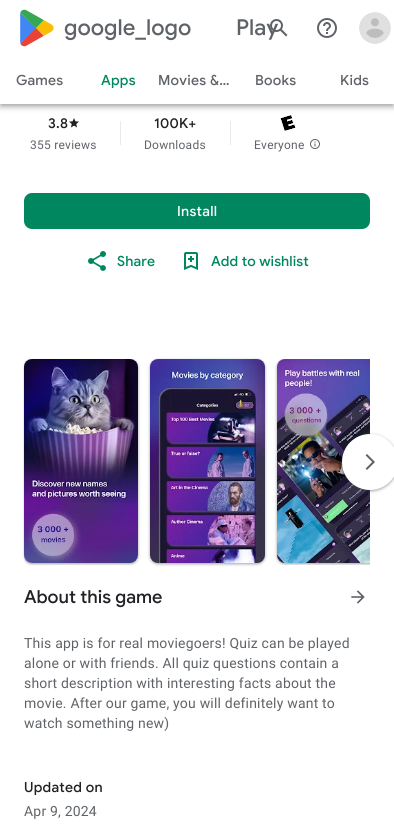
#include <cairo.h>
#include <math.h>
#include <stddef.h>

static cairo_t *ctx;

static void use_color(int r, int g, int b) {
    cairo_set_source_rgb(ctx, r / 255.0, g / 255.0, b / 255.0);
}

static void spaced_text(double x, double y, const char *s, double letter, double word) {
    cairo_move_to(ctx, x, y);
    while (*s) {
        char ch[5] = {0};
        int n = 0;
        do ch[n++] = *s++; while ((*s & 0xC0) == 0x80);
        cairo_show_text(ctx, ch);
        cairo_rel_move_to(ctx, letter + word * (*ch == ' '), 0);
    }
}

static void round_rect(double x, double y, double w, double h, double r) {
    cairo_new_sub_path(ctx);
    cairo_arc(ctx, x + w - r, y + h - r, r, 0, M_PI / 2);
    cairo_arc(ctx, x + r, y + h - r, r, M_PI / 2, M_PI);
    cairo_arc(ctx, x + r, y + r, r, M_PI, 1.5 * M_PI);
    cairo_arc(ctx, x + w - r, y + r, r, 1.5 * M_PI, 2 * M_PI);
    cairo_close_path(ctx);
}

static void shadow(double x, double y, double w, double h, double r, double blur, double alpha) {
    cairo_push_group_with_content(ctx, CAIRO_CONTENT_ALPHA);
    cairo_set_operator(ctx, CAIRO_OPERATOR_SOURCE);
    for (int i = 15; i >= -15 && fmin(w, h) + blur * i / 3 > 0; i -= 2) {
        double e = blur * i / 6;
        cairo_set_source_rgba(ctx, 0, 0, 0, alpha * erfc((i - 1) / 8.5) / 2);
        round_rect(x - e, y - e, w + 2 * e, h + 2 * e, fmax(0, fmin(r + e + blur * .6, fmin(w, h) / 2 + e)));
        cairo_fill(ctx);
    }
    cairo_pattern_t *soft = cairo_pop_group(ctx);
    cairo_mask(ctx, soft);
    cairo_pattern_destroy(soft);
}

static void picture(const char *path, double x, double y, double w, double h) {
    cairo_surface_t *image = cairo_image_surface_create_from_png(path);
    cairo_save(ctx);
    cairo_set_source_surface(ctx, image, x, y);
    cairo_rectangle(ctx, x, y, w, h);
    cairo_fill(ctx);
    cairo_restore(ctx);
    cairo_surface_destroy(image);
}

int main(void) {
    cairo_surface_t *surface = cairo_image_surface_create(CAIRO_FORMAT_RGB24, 394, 839);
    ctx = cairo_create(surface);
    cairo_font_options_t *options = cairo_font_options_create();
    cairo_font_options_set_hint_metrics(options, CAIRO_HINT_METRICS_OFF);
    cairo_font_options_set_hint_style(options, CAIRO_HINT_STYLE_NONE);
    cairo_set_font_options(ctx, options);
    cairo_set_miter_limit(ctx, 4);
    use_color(255, 255, 255);
    cairo_paint(ctx);
    use_color(0, 0, 0);
    shadow(1, 3, 392, 102, 0, 2, 0.2);
    picture("img5.png", 69, 118, 10, 10);
    picture("img6.png", 280, 115, 16, 16);
    shadow(0, 1, 394, 104, 0, 5, 0.12);
    shadow(0, 4, 394, 104, 0, 2.5, 0.14);
    use_color(255, 255, 255);
    cairo_rectangle(ctx, 0, 0, 394, 104);
    cairo_fill(ctx);
    picture("img1.png", 20, 9, 34, 38);
    cairo_select_font_face(ctx, "Google Sans Medium", CAIRO_FONT_SLANT_NORMAL, CAIRO_FONT_WEIGHT_NORMAL);
    cairo_set_font_size(ctx, 22);
    use_color(95, 99, 104);
    spaced_text(64, 35, "google_logo", 0, 55);
    spaced_text(236, 35, "Play", 0, 55);
    picture("img2.png", 270, 19, 18, 18);
    picture("img3.png", 317, 18, 20, 20);
    picture("img4.png", 359, 12, 32, 32);
    cairo_set_font_size(ctx, 14);
    spaced_text(16, 85, "Games", 0.25, 0);
    use_color(1, 135, 95);
    spaced_text(101, 85, "Apps", 0.25, 0);
    use_color(95, 99, 104);
    spaced_text(158, 85, "Movies &…", 0.25, 0);
    spaced_text(255, 85, "Books", 0.25, 0);
    spaced_text(340, 85, "Kids", 0.25, 0);
    use_color(32, 33, 36);
    spaced_text(48, 128, "3.8", 0.25, 0);
    cairo_select_font_face(ctx, "Roboto", CAIRO_FONT_SLANT_NORMAL, CAIRO_FONT_WEIGHT_NORMAL);
    cairo_set_font_size(ctx, 12);
    use_color(95, 99, 104);
    spaced_text(30, 149, "355 reviews", 0.25, 0);
    use_color(232, 234, 237);
    cairo_rectangle(ctx, 120, 121, 1, 24);
    cairo_fill(ctx);
    cairo_select_font_face(ctx, "Google Sans Medium", CAIRO_FONT_SLANT_NORMAL, CAIRO_FONT_WEIGHT_NORMAL);
    cairo_set_font_size(ctx, 14);
    use_color(32, 33, 36);
    spaced_text(154, 128, "100K+", 0.25, 0);
    cairo_select_font_face(ctx, "Roboto", CAIRO_FONT_SLANT_NORMAL, CAIRO_FONT_WEIGHT_NORMAL);
    cairo_set_font_size(ctx, 12);
    use_color(95, 99, 104);
    spaced_text(144, 149, "Downloads", 0.25, 0);
    use_color(232, 234, 237);
    cairo_rectangle(ctx, 230, 121, 1, 24);
    cairo_fill(ctx);
    use_color(95, 99, 104);
    spaced_text(254, 149, "Everyone", 0.25, 0);
    picture("img7.png", 310, 139, 10, 10);
    use_color(1, 135, 95);
    round_rect(24, 193, 346, 36, 8);
    cairo_fill(ctx);
    cairo_select_font_face(ctx, "Google Sans Medium", CAIRO_FONT_SLANT_NORMAL, CAIRO_FONT_WEIGHT_NORMAL);
    cairo_set_font_size(ctx, 14);
    use_color(255, 255, 255);
    spaced_text(177, 216, "Install", 0.25, 0);
    picture("img8.png", 88, 251, 18, 20);
    use_color(1, 135, 95);
    spaced_text(117, 266, "Share", 0.1, 0);
    picture("img9.png", 184, 252, 14, 18);
    spaced_text(211, 266, "Add to wishlist", 0.1, 0);
    cairo_save(ctx);
    cairo_rectangle(ctx, 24, 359, 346, 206);
    cairo_clip(ctx);
    use_color(60, 64, 67);
    shadow(23, 359, 116, 206, 9, 1.5, 0.15);
    cairo_restore(ctx);
    cairo_save(ctx);
    cairo_set_fill_rule(ctx, CAIRO_FILL_RULE_EVEN_ODD);
    cairo_new_path(ctx);
    cairo_move_to(ctx, 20, 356);
    cairo_line_to(ctx, 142, 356);
    cairo_line_to(ctx, 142, 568);
    cairo_line_to(ctx, 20, 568);
    cairo_close_path(ctx);
    cairo_move_to(ctx, 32, 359);
    cairo_line_to(ctx, 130, 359);
    cairo_curve_to(ctx, 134.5, 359, 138, 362.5, 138, 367);
    cairo_line_to(ctx, 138, 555);
    cairo_curve_to(ctx, 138, 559.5, 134.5, 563, 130, 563);
    cairo_line_to(ctx, 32, 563);
    cairo_curve_to(ctx, 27.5, 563, 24, 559.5, 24, 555);
    cairo_line_to(ctx, 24, 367);
    cairo_curve_to(ctx, 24, 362.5, 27.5, 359, 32, 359);
    cairo_close_path(ctx);
    cairo_clip(ctx);
    use_color(60, 64, 67);
    shadow(24, 360, 114, 204, 8, 1, 0.3);
    cairo_restore(ctx);
    picture("img10.png", 24, 359, 114, 204);
    cairo_save(ctx);
    cairo_set_fill_rule(ctx, CAIRO_FILL_RULE_EVEN_ODD);
    cairo_new_path(ctx);
    cairo_move_to(ctx, 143, 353);
    cairo_line_to(ctx, 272, 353);
    cairo_line_to(ctx, 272, 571);
    cairo_line_to(ctx, 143, 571);
    cairo_close_path(ctx);
    cairo_move_to(ctx, 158, 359);
    cairo_line_to(ctx, 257, 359);
    cairo_curve_to(ctx, 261.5, 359, 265, 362.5, 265, 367);
    cairo_line_to(ctx, 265, 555);
    cairo_curve_to(ctx, 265, 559.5, 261.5, 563, 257, 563);
    cairo_line_to(ctx, 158, 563);
    cairo_curve_to(ctx, 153.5, 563, 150, 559.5, 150, 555);
    cairo_line_to(ctx, 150, 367);
    cairo_curve_to(ctx, 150, 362.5, 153.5, 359, 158, 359);
    cairo_close_path(ctx);
    cairo_clip(ctx);
    use_color(60, 64, 67);
    shadow(149, 359, 117, 206, 9, 1.5, 0.15);
    cairo_restore(ctx);
    use_color(60, 64, 67);
    shadow(150, 360, 115, 204, 8, 1, 0.3);
    picture("img11.png", 150, 359, 115, 204);
    cairo_save(ctx);
    cairo_rectangle(ctx, 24, 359, 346, 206);
    cairo_clip(ctx);
    shadow(276, 359, 116, 206, 9, 1.5, 0.15);
    shadow(277, 360, 114, 204, 8, 1, 0.3);
    cairo_restore(ctx);
    picture("img12.png", 277, 359, 93, 204);
    shadow(341, 434, 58, 58, 29, 1.5, 0.15);
    shadow(342, 435, 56, 56, 28, 1, 0.3);
    use_color(255, 255, 255);
    cairo_arc(ctx, 370, 462, 28, 0, 2 * M_PI);
    cairo_fill(ctx);
    picture("img13.png", 365, 454, 10, 16);
    cairo_set_font_size(ctx, 18);
    use_color(32, 33, 36);
    cairo_move_to(ctx, 24, 603);
    cairo_show_text(ctx, "About this game");
    picture("img14.png", 351, 590, 14, 14);
    cairo_select_font_face(ctx, "Roboto", CAIRO_FONT_SLANT_NORMAL, CAIRO_FONT_WEIGHT_NORMAL);
    cairo_set_font_size(ctx, 14);
    use_color(95, 99, 104);
    spaced_text(24, 648, "This app is for real moviegoers! Quiz can be played", 0.2, 0);
    spaced_text(24, 668, "alone or with friends. All quiz questions contain a", 0.2, 0);
    spaced_text(24, 688, "short description with interesting facts about the", 0.2, 0);
    spaced_text(24, 708, "movie. After our game, you will definitely want to", 0.2, 0);
    spaced_text(24, 728, "watch something new)", 0.2, 0);
    cairo_select_font_face(ctx, "Google Sans Medium", CAIRO_FONT_SLANT_NORMAL, CAIRO_FONT_WEIGHT_NORMAL);
    use_color(32, 33, 36);
    spaced_text(24, 792, "Updated on", 0.25, 0);
    cairo_select_font_face(ctx, "Roboto", CAIRO_FONT_SLANT_NORMAL, CAIRO_FONT_WEIGHT_NORMAL);
    use_color(95, 99, 104);
    spaced_text(24, 816, "Apr 9, 2024", 0.2, 0);
    cairo_surface_write_to_png(surface, "result.png");
    cairo_font_options_destroy(options);
    cairo_destroy(ctx);
    cairo_surface_destroy(surface);
    return 0;
}
